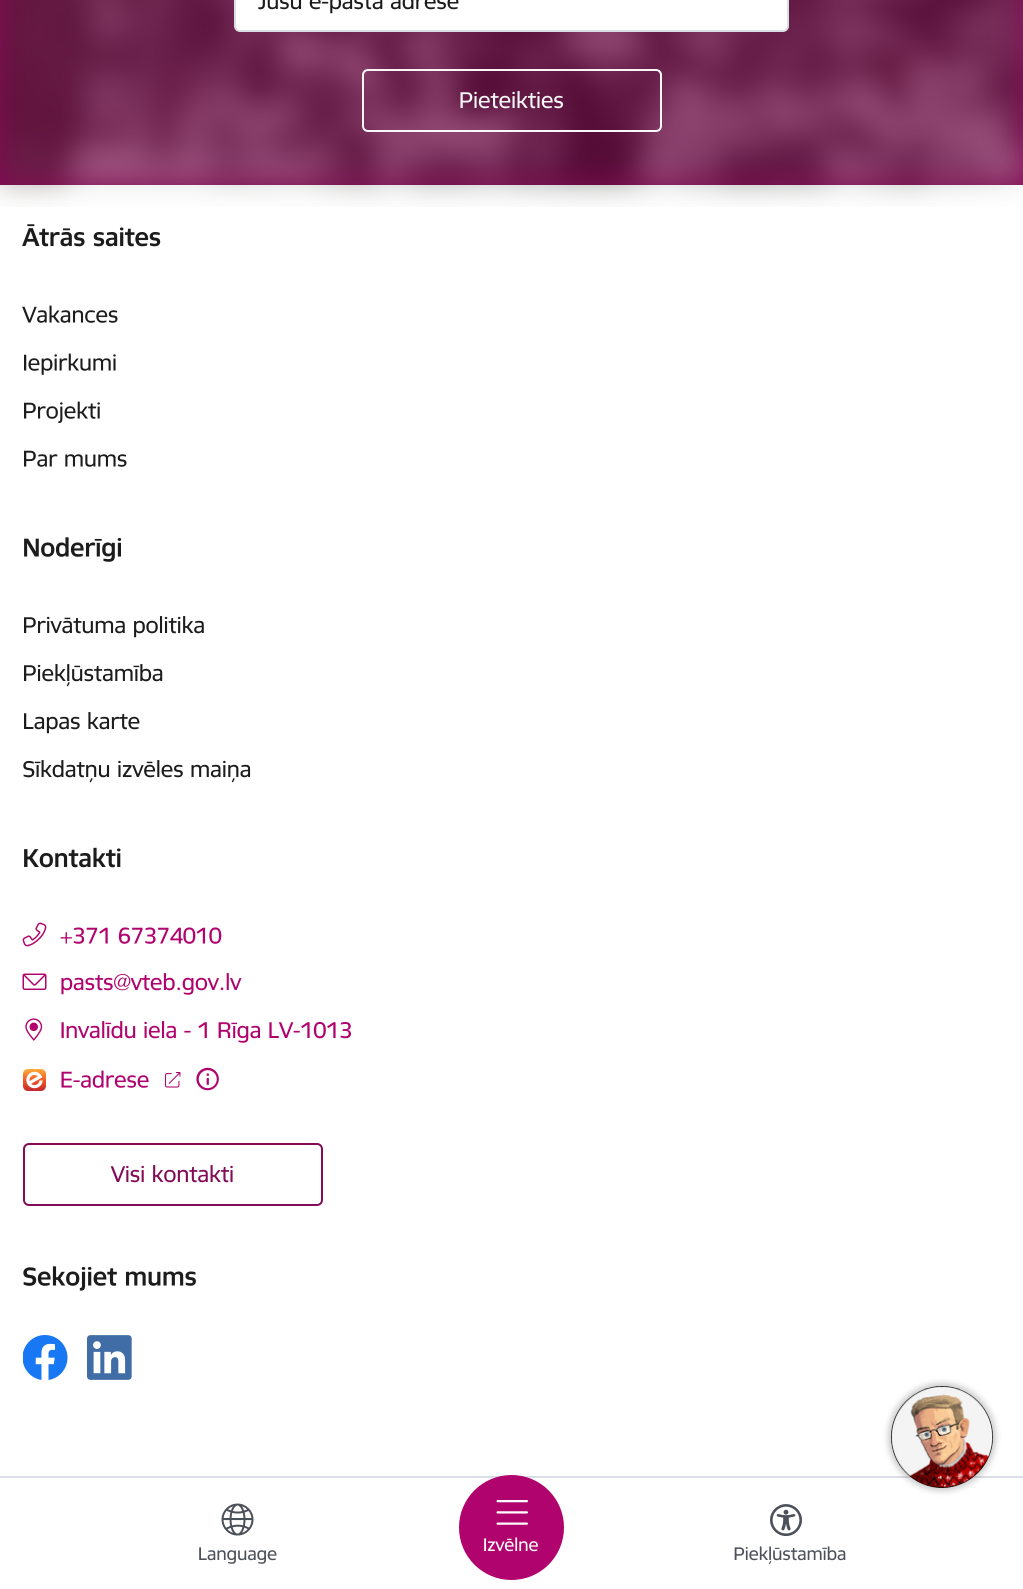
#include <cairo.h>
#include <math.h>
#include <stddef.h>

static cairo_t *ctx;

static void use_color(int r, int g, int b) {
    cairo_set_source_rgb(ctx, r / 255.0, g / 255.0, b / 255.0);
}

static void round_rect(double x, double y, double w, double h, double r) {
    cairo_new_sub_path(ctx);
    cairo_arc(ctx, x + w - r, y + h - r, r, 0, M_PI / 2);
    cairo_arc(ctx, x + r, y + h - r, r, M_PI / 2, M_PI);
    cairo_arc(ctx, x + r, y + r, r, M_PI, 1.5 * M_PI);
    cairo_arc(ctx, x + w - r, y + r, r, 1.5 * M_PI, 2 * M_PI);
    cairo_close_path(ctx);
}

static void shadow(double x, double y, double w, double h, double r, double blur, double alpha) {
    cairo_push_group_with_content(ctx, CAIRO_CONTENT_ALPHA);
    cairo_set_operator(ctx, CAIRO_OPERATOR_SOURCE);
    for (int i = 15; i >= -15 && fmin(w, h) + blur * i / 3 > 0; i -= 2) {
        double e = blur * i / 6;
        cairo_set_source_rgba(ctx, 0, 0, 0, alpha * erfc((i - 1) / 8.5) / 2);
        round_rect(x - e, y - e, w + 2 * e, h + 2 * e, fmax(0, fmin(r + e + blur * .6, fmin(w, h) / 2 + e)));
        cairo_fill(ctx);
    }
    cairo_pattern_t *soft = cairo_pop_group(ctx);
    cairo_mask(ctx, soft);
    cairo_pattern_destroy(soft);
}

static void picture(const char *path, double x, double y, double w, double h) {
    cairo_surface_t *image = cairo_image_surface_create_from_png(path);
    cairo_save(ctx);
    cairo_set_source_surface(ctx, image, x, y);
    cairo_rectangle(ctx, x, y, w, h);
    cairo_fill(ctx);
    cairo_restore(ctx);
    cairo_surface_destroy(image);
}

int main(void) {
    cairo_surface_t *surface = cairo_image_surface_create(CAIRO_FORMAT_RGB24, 1023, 1589);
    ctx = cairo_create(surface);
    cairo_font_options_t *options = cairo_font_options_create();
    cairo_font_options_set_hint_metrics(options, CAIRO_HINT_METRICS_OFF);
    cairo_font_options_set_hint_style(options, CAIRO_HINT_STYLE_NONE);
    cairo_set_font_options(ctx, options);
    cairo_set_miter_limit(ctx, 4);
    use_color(255, 255, 255);
    cairo_paint(ctx);
    use_color(132, 11, 85);
    cairo_rectangle(ctx, 0, 0, 1023, 185);
    cairo_fill(ctx);
    picture("img3.png", 0, 0, 1023, 207);
    use_color(255, 255, 255);
    round_rect(235, -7, 553, 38, 5);
    cairo_fill_preserve(ctx);
    use_color(219, 222, 228);
    cairo_stroke(ctx);
    picture("img1.png", 258, 0, 201, 14);
    round_rect(363, 70, 298, 61, 5);
    use_color(247, 247, 247);
    cairo_stroke(ctx);
    picture("img2.png", 460, 91, 103, 18);
    picture("img4.png", 22, 224, 139, 23);
    picture("img5.png", 22, 305, 96, 18);
    picture("img6.png", 24, 353, 92, 22);
    picture("img7.png", 24, 401, 76, 23);
    picture("img8.png", 24, 450, 103, 17);
    picture("img9.png", 24, 537, 98, 25);
    picture("img10.png", 24, 616, 180, 22);
    picture("img11.png", 24, 664, 139, 23);
    picture("img12.png", 24, 712, 116, 22);
    picture("img13.png", 23, 760, 228, 23);
    picture("img14.png", 24, 847, 97, 21);
    picture("img15.png", 22, 922, 25, 25);
    picture("img16.png", 60, 927, 162, 17);
    picture("img17.png", 22, 973, 25, 17);
    picture("img18.png", 61, 973, 181, 22);
    picture("img19.png", 25, 1018, 18, 23);
    picture("img20.png", 61, 1021, 290, 22);
    picture("img21.png", 23, 1069, 23, 22);
    picture("img22.png", 61, 1070, 88, 18);
    picture("img23.png", 165, 1072, 16, 16);
    picture("img24.png", 196, 1067, 23, 24);
    round_rect(24, 1144, 298, 61, 5);
    use_color(132, 11, 85);
    cairo_stroke(ctx);
    picture("img25.png", 110, 1165, 123, 18);
    picture("img26.png", 23, 1266, 173, 25);
    picture("img27.png", 23, 1335, 45, 45);
    picture("img28.png", 87, 1335, 45, 45);
    use_color(219, 222, 228);
    cairo_rectangle(ctx, 0, 1476, 1023, 2);
    cairo_fill(ctx);
    use_color(0, 0, 0);
    shadow(888, 1383, 108, 108, 54, 3, 0.2);
    use_color(255, 255, 255);
    cairo_arc(ctx, 942, 1437, 51, 0, 2 * M_PI);
    cairo_fill(ctx);
    picture("img29.png", 891, 1386, 102, 102);
    use_color(176, 3, 110);
    cairo_arc(ctx, 511.5, 1527.5, 52.5, 0, 2 * M_PI);
    cairo_fill(ctx);
    picture("img30.png", 496, 1500, 32, 25);
    picture("img31.png", 484, 1537, 54, 15);
    picture("img32.png", 221, 1503, 33, 33);
    picture("img33.png", 199, 1547, 78, 17);
    picture("img34.png", 770, 1504, 32, 32);
    picture("img35.png", 734, 1546, 112, 19);
    cairo_surface_write_to_png(surface, "result.png");
    cairo_font_options_destroy(options);
    cairo_destroy(ctx);
    cairo_surface_destroy(surface);
    return 0;
}
